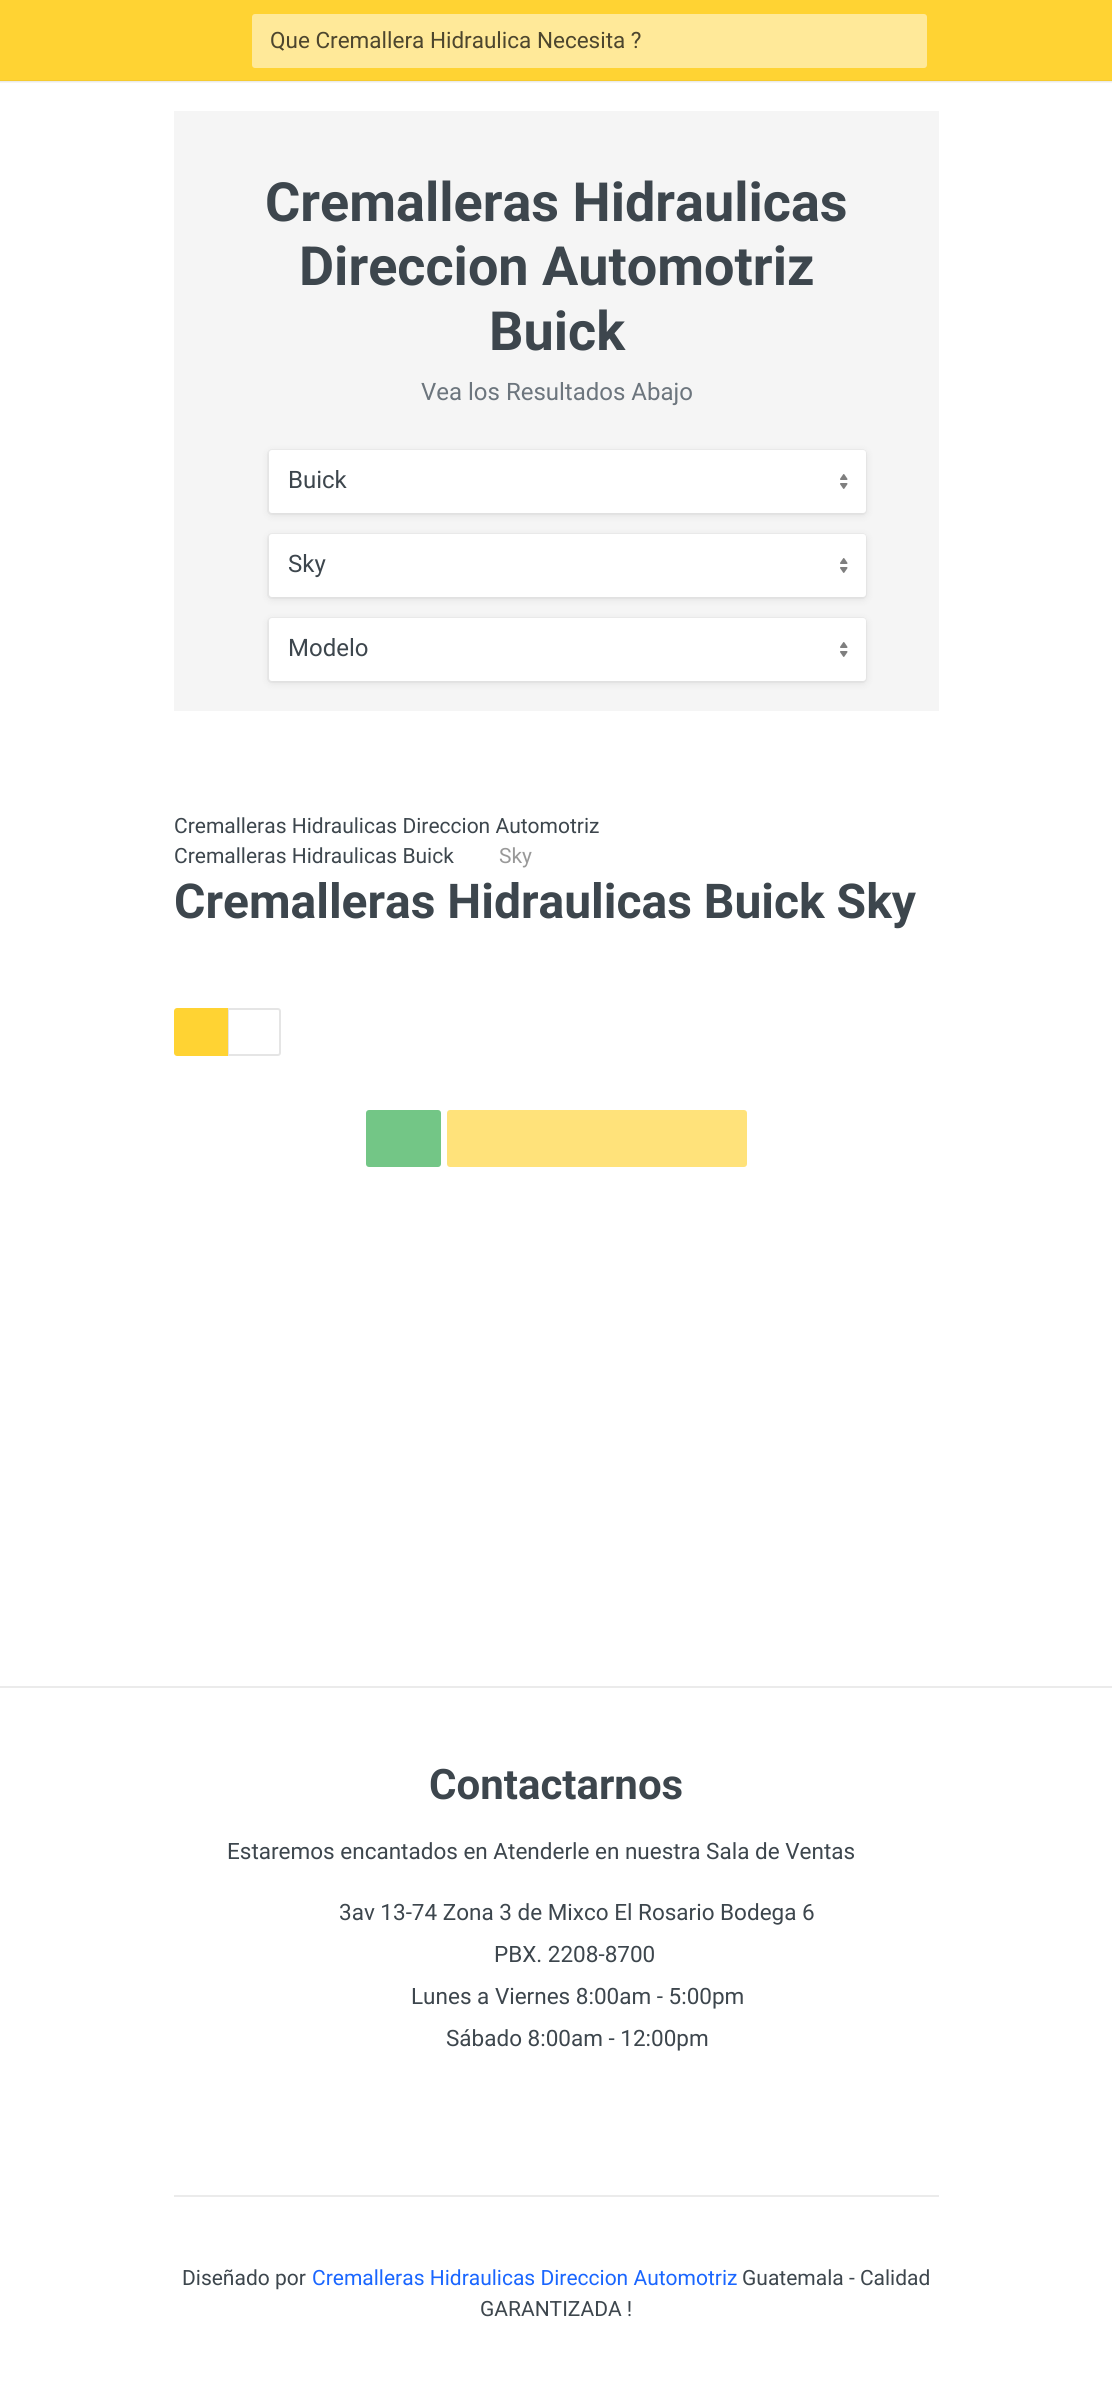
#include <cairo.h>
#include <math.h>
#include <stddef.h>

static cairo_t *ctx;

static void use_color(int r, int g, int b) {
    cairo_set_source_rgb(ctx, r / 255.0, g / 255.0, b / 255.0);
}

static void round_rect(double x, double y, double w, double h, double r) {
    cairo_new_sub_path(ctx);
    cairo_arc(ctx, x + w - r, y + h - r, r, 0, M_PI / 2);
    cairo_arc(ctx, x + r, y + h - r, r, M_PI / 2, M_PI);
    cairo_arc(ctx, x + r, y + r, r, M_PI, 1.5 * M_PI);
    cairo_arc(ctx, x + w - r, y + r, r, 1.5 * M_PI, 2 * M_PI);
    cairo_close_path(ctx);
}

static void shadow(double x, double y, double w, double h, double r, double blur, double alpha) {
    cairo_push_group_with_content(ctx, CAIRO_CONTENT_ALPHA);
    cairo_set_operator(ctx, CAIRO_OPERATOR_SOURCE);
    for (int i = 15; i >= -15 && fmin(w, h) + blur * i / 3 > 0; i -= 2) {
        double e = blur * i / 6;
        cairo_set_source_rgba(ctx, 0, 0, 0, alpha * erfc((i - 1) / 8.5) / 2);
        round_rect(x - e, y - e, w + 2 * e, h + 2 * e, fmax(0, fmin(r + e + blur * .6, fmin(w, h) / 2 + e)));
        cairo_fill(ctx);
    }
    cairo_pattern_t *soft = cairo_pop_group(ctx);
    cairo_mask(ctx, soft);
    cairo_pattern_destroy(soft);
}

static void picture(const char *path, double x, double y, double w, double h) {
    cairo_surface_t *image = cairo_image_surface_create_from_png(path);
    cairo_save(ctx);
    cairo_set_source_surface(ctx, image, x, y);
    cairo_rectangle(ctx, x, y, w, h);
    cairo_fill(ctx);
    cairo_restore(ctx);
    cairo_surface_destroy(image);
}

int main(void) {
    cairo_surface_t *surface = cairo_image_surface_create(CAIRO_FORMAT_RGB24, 1112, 2397);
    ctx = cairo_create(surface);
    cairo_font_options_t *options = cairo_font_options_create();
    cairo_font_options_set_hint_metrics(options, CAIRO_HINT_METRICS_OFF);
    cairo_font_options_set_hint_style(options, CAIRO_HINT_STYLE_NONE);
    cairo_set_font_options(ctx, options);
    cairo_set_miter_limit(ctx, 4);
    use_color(255, 255, 255);
    cairo_paint(ctx);
    use_color(245, 245, 245);
    cairo_rectangle(ctx, 0, 82, 1112, 1);
    cairo_fill(ctx);
    use_color(235, 235, 235);
    cairo_rectangle(ctx, 0, 81, 1112, 1);
    cairo_fill(ctx);
    use_color(255, 211, 51);
    cairo_rectangle(ctx, 0, 0, 1112, 80);
    cairo_fill(ctx);
    use_color(245, 203, 49);
    cairo_rectangle(ctx, 0, 80, 1112, 1);
    cairo_fill(ctx);
    use_color(255, 233, 153);
    round_rect(252, 14, 675, 54, 3);
    cairo_fill(ctx);
    cairo_select_font_face(ctx, "Roboto", CAIRO_FONT_SLANT_NORMAL, CAIRO_FONT_WEIGHT_NORMAL);
    cairo_set_font_size(ctx, 22.5);
    use_color(77, 70, 46);
    cairo_move_to(ctx, 270, 48);
    cairo_show_text(ctx, "Que Cremallera Hidraulica Necesita ?");
    use_color(245, 245, 245);
    cairo_rectangle(ctx, 174, 111, 765, 600);
    cairo_fill(ctx);
    cairo_select_font_face(ctx, "Roboto", CAIRO_FONT_SLANT_NORMAL, CAIRO_FONT_WEIGHT_BOLD);
    cairo_set_font_size(ctx, 54);
    use_color(61, 70, 77);
    cairo_move_to(ctx, 265, 221);
    cairo_show_text(ctx, "Cremalleras Hidraulicas");
    cairo_move_to(ctx, 299, 285);
    cairo_show_text(ctx, "Direccion Automotriz");
    cairo_move_to(ctx, 489, 350);
    cairo_show_text(ctx, "Buick");
    cairo_select_font_face(ctx, "Roboto", CAIRO_FONT_SLANT_NORMAL, CAIRO_FONT_WEIGHT_NORMAL);
    cairo_set_font_size(ctx, 24);
    use_color(108, 117, 125);
    cairo_move_to(ctx, 421, 400);
    cairo_show_text(ctx, "Vea los Resultados Abajo");
    round_rect(268, 450, 598, 64, 4);
    use_color(238, 238, 238);
    cairo_stroke(ctx);
    use_color(0, 0, 0);
    shadow(269, 452, 597, 63, 3, 4, 0.09);
    use_color(255, 255, 255);
    round_rect(269, 450, 597, 63, 3);
    cairo_fill(ctx);
    picture("img1.png", 840, 474, 8, 15);
    use_color(61, 70, 77);
    cairo_move_to(ctx, 288, 488);
    cairo_show_text(ctx, "Buick");
    round_rect(268, 534, 598, 64, 4);
    use_color(238, 238, 238);
    cairo_stroke(ctx);
    use_color(0, 0, 0);
    shadow(269, 536, 597, 63, 3, 4, 0.09);
    use_color(255, 255, 255);
    round_rect(269, 534, 597, 63, 3);
    cairo_fill(ctx);
    picture("img1.png", 840, 558, 8, 15);
    use_color(61, 70, 77);
    cairo_move_to(ctx, 288, 572);
    cairo_show_text(ctx, "Sky");
    round_rect(268, 618, 598, 64, 4);
    use_color(238, 238, 238);
    cairo_stroke(ctx);
    use_color(0, 0, 0);
    shadow(269, 620, 597, 63, 3, 4, 0.09);
    use_color(255, 255, 255);
    round_rect(269, 618, 597, 63, 3);
    cairo_fill(ctx);
    picture("img1.png", 840, 642, 8, 15);
    use_color(61, 70, 77);
    cairo_move_to(ctx, 288, 656);
    cairo_show_text(ctx, "Modelo");
    cairo_set_font_size(ctx, 21);
    cairo_move_to(ctx, 174, 833);
    cairo_show_text(ctx, "Cremalleras Hidraulicas Direccion Automotriz");
    cairo_move_to(ctx, 174, 863);
    cairo_show_text(ctx, "Cremalleras Hidraulicas Buick");
    use_color(153, 153, 153);
    cairo_move_to(ctx, 499, 863);
    cairo_show_text(ctx, "Sky");
    cairo_select_font_face(ctx, "Roboto", CAIRO_FONT_SLANT_NORMAL, CAIRO_FONT_WEIGHT_BOLD);
    cairo_set_font_size(ctx, 48);
    use_color(61, 70, 77);
    cairo_move_to(ctx, 174, 918);
    cairo_show_text(ctx, "Cremalleras Hidraulicas Buick Sky");
    cairo_new_path(ctx);
    cairo_move_to(ctx, 228, 1009);
    cairo_line_to(ctx, 278, 1009);
    cairo_curve_to(ctx, 279, 1009, 280, 1010, 280, 1011);
    cairo_line_to(ctx, 280, 1053);
    cairo_curve_to(ctx, 280, 1054, 279, 1055, 278, 1055);
    cairo_line_to(ctx, 228, 1055);
    cairo_close_path(ctx);
    use_color(229, 229, 229);
    cairo_stroke(ctx);
    use_color(255, 211, 51);
    cairo_new_path(ctx);
    cairo_move_to(ctx, 177, 1009);
    cairo_line_to(ctx, 227, 1009);
    cairo_line_to(ctx, 227, 1055);
    cairo_line_to(ctx, 177, 1055);
    cairo_curve_to(ctx, 176, 1055, 175, 1054, 175, 1053);
    cairo_line_to(ctx, 175, 1011);
    cairo_curve_to(ctx, 175, 1010, 176, 1009, 177, 1009);
    cairo_close_path(ctx);
    cairo_fill_preserve(ctx);
    cairo_stroke(ctx);
    use_color(115, 198, 134);
    round_rect(367, 1111, 73, 55, 2);
    cairo_fill_preserve(ctx);
    cairo_stroke(ctx);
    use_color(255, 226, 122);
    round_rect(448, 1111, 298, 55, 2);
    cairo_fill_preserve(ctx);
    cairo_stroke(ctx);
    use_color(235, 235, 235);
    cairo_rectangle(ctx, 0, 1686, 1112, 2);
    cairo_fill(ctx);
    cairo_set_font_size(ctx, 42);
    use_color(61, 70, 77);
    cairo_move_to(ctx, 429, 1799);
    cairo_show_text(ctx, "Contactarnos");
    cairo_select_font_face(ctx, "Roboto", CAIRO_FONT_SLANT_NORMAL, CAIRO_FONT_WEIGHT_NORMAL);
    cairo_set_font_size(ctx, 22.5);
    cairo_move_to(ctx, 227, 1859);
    cairo_show_text(ctx, "Estaremos encantados en Atenderle en nuestra Sala de Ventas");
    cairo_move_to(ctx, 339, 1920);
    cairo_show_text(ctx, "3av 13-74 Zona 3 de Mixco El Rosario Bodega 6");
    cairo_move_to(ctx, 494, 1962);
    cairo_show_text(ctx, "PBX. 2208-8700");
    cairo_move_to(ctx, 411, 2004);
    cairo_show_text(ctx, "Lunes a Viernes 8:00am - 5:00pm");
    cairo_move_to(ctx, 446, 2046);
    cairo_show_text(ctx, "Sábado 8:00am - 12:00pm");
    use_color(235, 235, 235);
    cairo_rectangle(ctx, 174, 2195, 765, 2);
    cairo_fill(ctx);
    cairo_set_font_size(ctx, 21);
    use_color(61, 70, 77);
    cairo_move_to(ctx, 182, 2285);
    cairo_show_text(ctx, "Diseñado por");
    use_color(26, 102, 255);
    cairo_move_to(ctx, 312, 2285);
    cairo_show_text(ctx, "Cremalleras Hidraulicas Direccion Automotriz");
    use_color(61, 70, 77);
    cairo_move_to(ctx, 742, 2285);
    cairo_show_text(ctx, "Guatemala - Calidad");
    cairo_move_to(ctx, 480, 2316);
    cairo_show_text(ctx, "GARANTIZADA !");
    cairo_surface_write_to_png(surface, "result.png");
    cairo_font_options_destroy(options);
    cairo_destroy(ctx);
    cairo_surface_destroy(surface);
    return 0;
}
